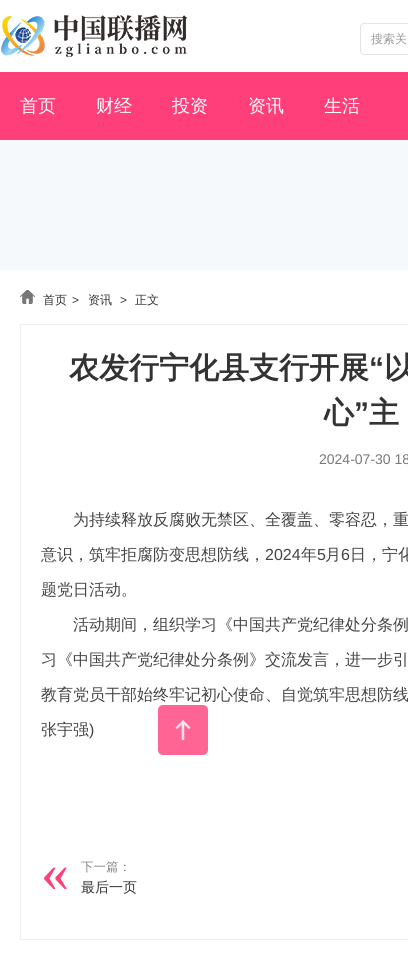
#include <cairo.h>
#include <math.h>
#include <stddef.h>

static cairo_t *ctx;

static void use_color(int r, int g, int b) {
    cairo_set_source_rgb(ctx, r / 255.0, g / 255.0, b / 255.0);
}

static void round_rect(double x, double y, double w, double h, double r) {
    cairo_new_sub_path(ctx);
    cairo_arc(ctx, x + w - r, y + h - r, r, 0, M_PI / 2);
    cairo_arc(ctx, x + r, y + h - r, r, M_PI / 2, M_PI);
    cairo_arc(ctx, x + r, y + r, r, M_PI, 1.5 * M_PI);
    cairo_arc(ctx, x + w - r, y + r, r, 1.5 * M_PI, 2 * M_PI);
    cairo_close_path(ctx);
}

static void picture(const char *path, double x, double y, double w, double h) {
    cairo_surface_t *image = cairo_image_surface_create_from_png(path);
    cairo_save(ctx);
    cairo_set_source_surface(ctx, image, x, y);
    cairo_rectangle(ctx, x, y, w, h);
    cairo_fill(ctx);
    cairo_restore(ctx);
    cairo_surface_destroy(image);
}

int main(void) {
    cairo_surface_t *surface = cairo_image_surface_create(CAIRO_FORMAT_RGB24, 408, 955);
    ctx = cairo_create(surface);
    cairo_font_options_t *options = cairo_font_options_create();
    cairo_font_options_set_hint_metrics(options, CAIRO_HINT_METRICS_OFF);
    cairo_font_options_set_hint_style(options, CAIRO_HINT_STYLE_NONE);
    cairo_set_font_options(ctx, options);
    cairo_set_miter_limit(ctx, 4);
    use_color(255, 255, 255);
    cairo_paint(ctx);
    picture("img1.png", 1, 15, 186, 42);
    round_rect(360.5, 23.5, 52, 31, 3.5);
    use_color(227, 228, 230);
    cairo_set_line_width(ctx, 1);
    cairo_stroke(ctx);
    cairo_select_font_face(ctx, "WenQuanYi Zen Hei Medium", CAIRO_FONT_SLANT_NORMAL, CAIRO_FONT_WEIGHT_NORMAL);
    cairo_set_font_size(ctx, 12);
    use_color(153, 153, 153);
    cairo_move_to(ctx, 371, 43);
    cairo_show_text(ctx, "搜索关");
    use_color(254, 63, 122);
    cairo_rectangle(ctx, 0, 72, 408, 68);
    cairo_fill(ctx);
    cairo_set_font_size(ctx, 18);
    use_color(255, 255, 255);
    cairo_move_to(ctx, 20, 112);
    cairo_show_text(ctx, "首页");
    cairo_move_to(ctx, 96, 112);
    cairo_show_text(ctx, "财经");
    cairo_move_to(ctx, 172, 112);
    cairo_show_text(ctx, "投资");
    cairo_move_to(ctx, 248, 112);
    cairo_show_text(ctx, "资讯");
    cairo_move_to(ctx, 324, 112);
    cairo_show_text(ctx, "生活");
    use_color(246, 249, 252);
    cairo_rectangle(ctx, 0, 140, 408, 130);
    cairo_fill(ctx);
    picture("img2.png", 20, 290, 15, 14);
    cairo_set_font_size(ctx, 12);
    use_color(51, 51, 51);
    cairo_move_to(ctx, 43, 304);
    cairo_show_text(ctx, "首页");
    cairo_select_font_face(ctx, "Liberation Sans", CAIRO_FONT_SLANT_NORMAL, CAIRO_FONT_WEIGHT_NORMAL);
    cairo_move_to(ctx, 72, 304);
    cairo_show_text(ctx, ">");
    cairo_select_font_face(ctx, "WenQuanYi Zen Hei Medium", CAIRO_FONT_SLANT_NORMAL, CAIRO_FONT_WEIGHT_NORMAL);
    cairo_move_to(ctx, 88, 304);
    cairo_show_text(ctx, "资讯");
    cairo_select_font_face(ctx, "Liberation Sans", CAIRO_FONT_SLANT_NORMAL, CAIRO_FONT_WEIGHT_NORMAL);
    cairo_move_to(ctx, 120, 304);
    cairo_show_text(ctx, ">");
    cairo_select_font_face(ctx, "WenQuanYi Zen Hei Medium", CAIRO_FONT_SLANT_NORMAL, CAIRO_FONT_WEIGHT_NORMAL);
    cairo_move_to(ctx, 135, 304);
    cairo_show_text(ctx, "正文");
    cairo_rectangle(ctx, 20.5, 324.5, 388, 615);
    use_color(239, 239, 239);
    cairo_stroke(ctx);
    cairo_select_font_face(ctx, "WenQuanYi Zen Hei", CAIRO_FONT_SLANT_NORMAL, CAIRO_FONT_WEIGHT_BOLD);
    cairo_set_font_size(ctx, 30);
    use_color(51, 51, 51);
    cairo_move_to(ctx, 69, 378);
    cairo_show_text(ctx, "农发行宁化县支行开展");
    cairo_select_font_face(ctx, "Liberation Sans", CAIRO_FONT_SLANT_NORMAL, CAIRO_FONT_WEIGHT_BOLD);
    cairo_move_to(ctx, 369, 378);
    cairo_show_text(ctx, "“");
    cairo_select_font_face(ctx, "WenQuanYi Zen Hei", CAIRO_FONT_SLANT_NORMAL, CAIRO_FONT_WEIGHT_BOLD);
    cairo_move_to(ctx, 384, 378);
    cairo_show_text(ctx, "以");
    cairo_move_to(ctx, 324, 423);
    cairo_show_text(ctx, "心");
    cairo_select_font_face(ctx, "Liberation Sans", CAIRO_FONT_SLANT_NORMAL, CAIRO_FONT_WEIGHT_BOLD);
    cairo_move_to(ctx, 354, 423);
    cairo_show_text(ctx, "”");
    cairo_select_font_face(ctx, "WenQuanYi Zen Hei", CAIRO_FONT_SLANT_NORMAL, CAIRO_FONT_WEIGHT_BOLD);
    cairo_move_to(ctx, 369, 423);
    cairo_show_text(ctx, "主");
    cairo_select_font_face(ctx, "Liberation Sans", CAIRO_FONT_SLANT_NORMAL, CAIRO_FONT_WEIGHT_NORMAL);
    cairo_set_font_size(ctx, 14);
    use_color(120, 120, 120);
    cairo_move_to(ctx, 319, 464);
    cairo_show_text(ctx, "2024-07-30 18");
    cairo_select_font_face(ctx, "WenQuanYi Zen Hei Medium", CAIRO_FONT_SLANT_NORMAL, CAIRO_FONT_WEIGHT_NORMAL);
    cairo_set_font_size(ctx, 16);
    use_color(68, 68, 68);
    cairo_move_to(ctx, 73, 525);
    cairo_show_text(ctx, "为持续释放反腐败无禁区、全覆盖、零容忍，重");
    cairo_move_to(ctx, 41, 560);
    cairo_show_text(ctx, "意识，筑牢拒腐防变思想防线，");
    cairo_select_font_face(ctx, "Liberation Sans", CAIRO_FONT_SLANT_NORMAL, CAIRO_FONT_WEIGHT_NORMAL);
    cairo_move_to(ctx, 265, 560);
    cairo_show_text(ctx, "2024");
    cairo_select_font_face(ctx, "WenQuanYi Zen Hei Medium", CAIRO_FONT_SLANT_NORMAL, CAIRO_FONT_WEIGHT_NORMAL);
    cairo_move_to(ctx, 301, 560);
    cairo_show_text(ctx, "年");
    cairo_select_font_face(ctx, "Liberation Sans", CAIRO_FONT_SLANT_NORMAL, CAIRO_FONT_WEIGHT_NORMAL);
    cairo_move_to(ctx, 317, 560);
    cairo_show_text(ctx, "5");
    cairo_select_font_face(ctx, "WenQuanYi Zen Hei Medium", CAIRO_FONT_SLANT_NORMAL, CAIRO_FONT_WEIGHT_NORMAL);
    cairo_move_to(ctx, 325, 560);
    cairo_show_text(ctx, "月");
    cairo_select_font_face(ctx, "Liberation Sans", CAIRO_FONT_SLANT_NORMAL, CAIRO_FONT_WEIGHT_NORMAL);
    cairo_move_to(ctx, 341, 560);
    cairo_show_text(ctx, "6");
    cairo_select_font_face(ctx, "WenQuanYi Zen Hei Medium", CAIRO_FONT_SLANT_NORMAL, CAIRO_FONT_WEIGHT_NORMAL);
    cairo_move_to(ctx, 350, 560);
    cairo_show_text(ctx, "日，宁化");
    cairo_move_to(ctx, 41, 595);
    cairo_show_text(ctx, "题党日活动。");
    cairo_move_to(ctx, 73, 630);
    cairo_show_text(ctx, "活动期间，组织学习《中国共产党纪律处分条例");
    cairo_move_to(ctx, 41, 665);
    cairo_show_text(ctx, "习《中国共产党纪律处分条例》交流发言，进一步引");
    cairo_move_to(ctx, 41, 700);
    cairo_show_text(ctx, "教育党员干部始终牢记初心使命、自觉筑牢思想防线");
    cairo_move_to(ctx, 41, 735);
    cairo_show_text(ctx, "张宇强");
    cairo_select_font_face(ctx, "Liberation Sans", CAIRO_FONT_SLANT_NORMAL, CAIRO_FONT_WEIGHT_NORMAL);
    cairo_move_to(ctx, 89, 735);
    cairo_show_text(ctx, ")");
    cairo_select_font_face(ctx, "WenQuanYi Zen Hei Medium", CAIRO_FONT_SLANT_NORMAL, CAIRO_FONT_WEIGHT_NORMAL);
    cairo_set_font_size(ctx, 12.5);
    use_color(136, 136, 136);
    cairo_move_to(ctx, 81, 871);
    cairo_show_text(ctx, "下一篇：");
    cairo_select_font_face(ctx, "Liberation Serif", CAIRO_FONT_SLANT_NORMAL, CAIRO_FONT_WEIGHT_NORMAL);
    cairo_set_font_size(ctx, 56);
    use_color(254, 63, 122);
    cairo_move_to(ctx, 41, 891);
    cairo_show_text(ctx, "«");
    cairo_select_font_face(ctx, "WenQuanYi Zen Hei Medium", CAIRO_FONT_SLANT_NORMAL, CAIRO_FONT_WEIGHT_NORMAL);
    cairo_set_font_size(ctx, 14);
    use_color(51, 51, 51);
    cairo_move_to(ctx, 81, 892);
    cairo_show_text(ctx, "最后一页");
    use_color(254, 101, 149);
    round_rect(158, 705, 50, 50, 5);
    cairo_fill(ctx);
    picture("img3.png", 175, 720, 16, 20);
    cairo_surface_write_to_png(surface, "result.png");
    cairo_font_options_destroy(options);
    cairo_destroy(ctx);
    cairo_surface_destroy(surface);
    return 0;
}
